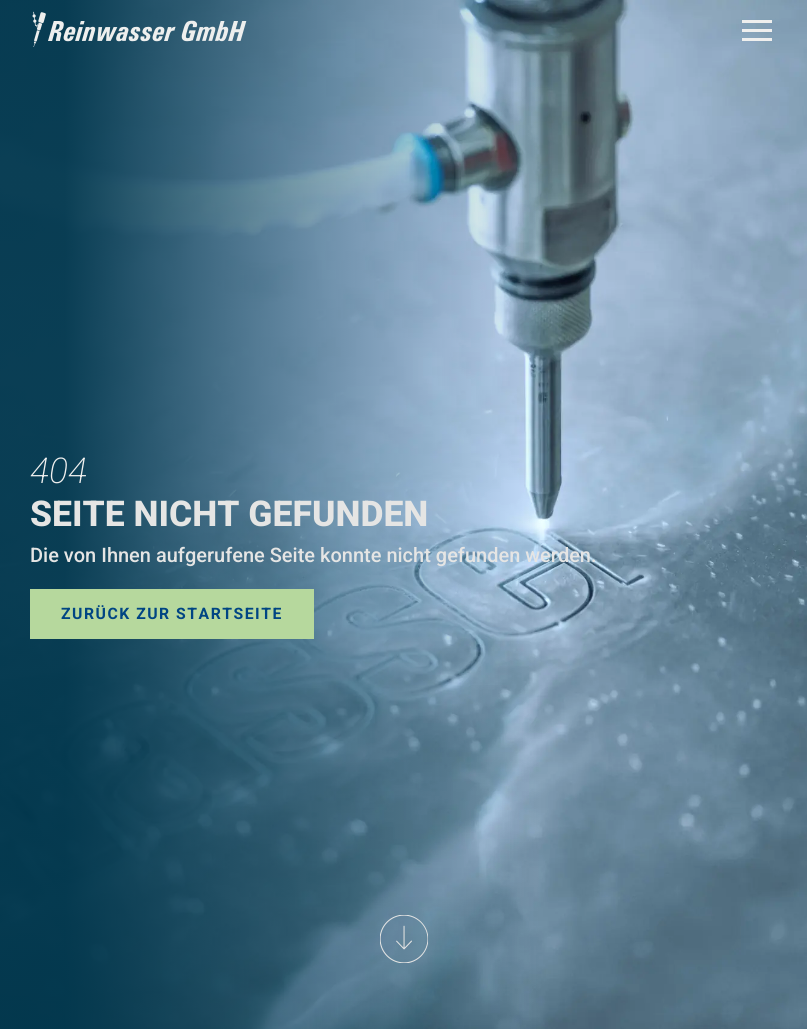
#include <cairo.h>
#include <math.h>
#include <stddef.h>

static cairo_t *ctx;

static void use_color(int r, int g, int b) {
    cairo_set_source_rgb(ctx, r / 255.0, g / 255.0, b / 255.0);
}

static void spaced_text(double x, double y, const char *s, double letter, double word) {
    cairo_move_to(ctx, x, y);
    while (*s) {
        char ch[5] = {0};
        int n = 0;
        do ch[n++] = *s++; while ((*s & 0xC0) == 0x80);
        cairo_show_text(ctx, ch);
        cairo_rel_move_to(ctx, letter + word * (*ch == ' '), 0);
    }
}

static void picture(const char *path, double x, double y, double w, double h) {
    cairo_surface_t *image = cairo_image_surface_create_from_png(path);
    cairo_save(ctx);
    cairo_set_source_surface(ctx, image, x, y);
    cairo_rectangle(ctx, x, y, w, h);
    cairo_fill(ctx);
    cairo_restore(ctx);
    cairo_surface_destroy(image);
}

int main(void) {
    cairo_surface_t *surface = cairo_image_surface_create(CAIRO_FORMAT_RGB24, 807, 1029);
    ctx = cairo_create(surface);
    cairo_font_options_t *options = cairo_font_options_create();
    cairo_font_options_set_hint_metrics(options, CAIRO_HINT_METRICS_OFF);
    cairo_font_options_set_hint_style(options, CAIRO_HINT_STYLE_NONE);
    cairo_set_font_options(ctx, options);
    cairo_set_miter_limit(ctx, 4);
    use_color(255, 255, 255);
    cairo_paint(ctx);
    picture("img1.png", 0, 0, 807, 1029);
    picture("img2.png", 32, 11, 215, 36);
    use_color(239, 239, 238);
    cairo_rectangle(ctx, 742, 20, 30, 3);
    cairo_fill(ctx);
    cairo_rectangle(ctx, 742, 29, 30, 3);
    cairo_fill(ctx);
    cairo_rectangle(ctx, 742, 38, 30, 3);
    cairo_fill(ctx);
    cairo_select_font_face(ctx, "Roboto ExtraLight", CAIRO_FONT_SLANT_ITALIC, CAIRO_FONT_WEIGHT_NORMAL);
    cairo_set_font_size(ctx, 35.5);
    cairo_move_to(ctx, 30, 483);
    cairo_show_text(ctx, "404");
    cairo_select_font_face(ctx, "Roboto ExtraBold", CAIRO_FONT_SLANT_NORMAL, CAIRO_FONT_WEIGHT_NORMAL);
    use_color(229, 229, 228);
    cairo_move_to(ctx, 30, 526);
    cairo_show_text(ctx, "SEITE NICHT GEFUNDEN");
    cairo_select_font_face(ctx, "Roboto Medium", CAIRO_FONT_SLANT_NORMAL, CAIRO_FONT_WEIGHT_NORMAL);
    cairo_set_font_size(ctx, 20);
    cairo_move_to(ctx, 30, 562);
    cairo_show_text(ctx, "Die von Ihnen aufgerufene Seite konnte nicht gefunden werden.");
    use_color(182, 216, 157);
    cairo_rectangle(ctx, 30, 589, 284, 50);
    cairo_fill(ctx);
    cairo_select_font_face(ctx, "Roboto", CAIRO_FONT_SLANT_NORMAL, CAIRO_FONT_WEIGHT_BOLD);
    cairo_set_font_size(ctx, 15.75);
    use_color(0, 69, 131);
    spaced_text(61, 619, "ZURÜCK ZUR STARTSEITE", 1.5, 0);
    picture("img3.png", 380, 915, 48, 48);
    cairo_surface_write_to_png(surface, "result.png");
    cairo_font_options_destroy(options);
    cairo_destroy(ctx);
    cairo_surface_destroy(surface);
    return 0;
}
